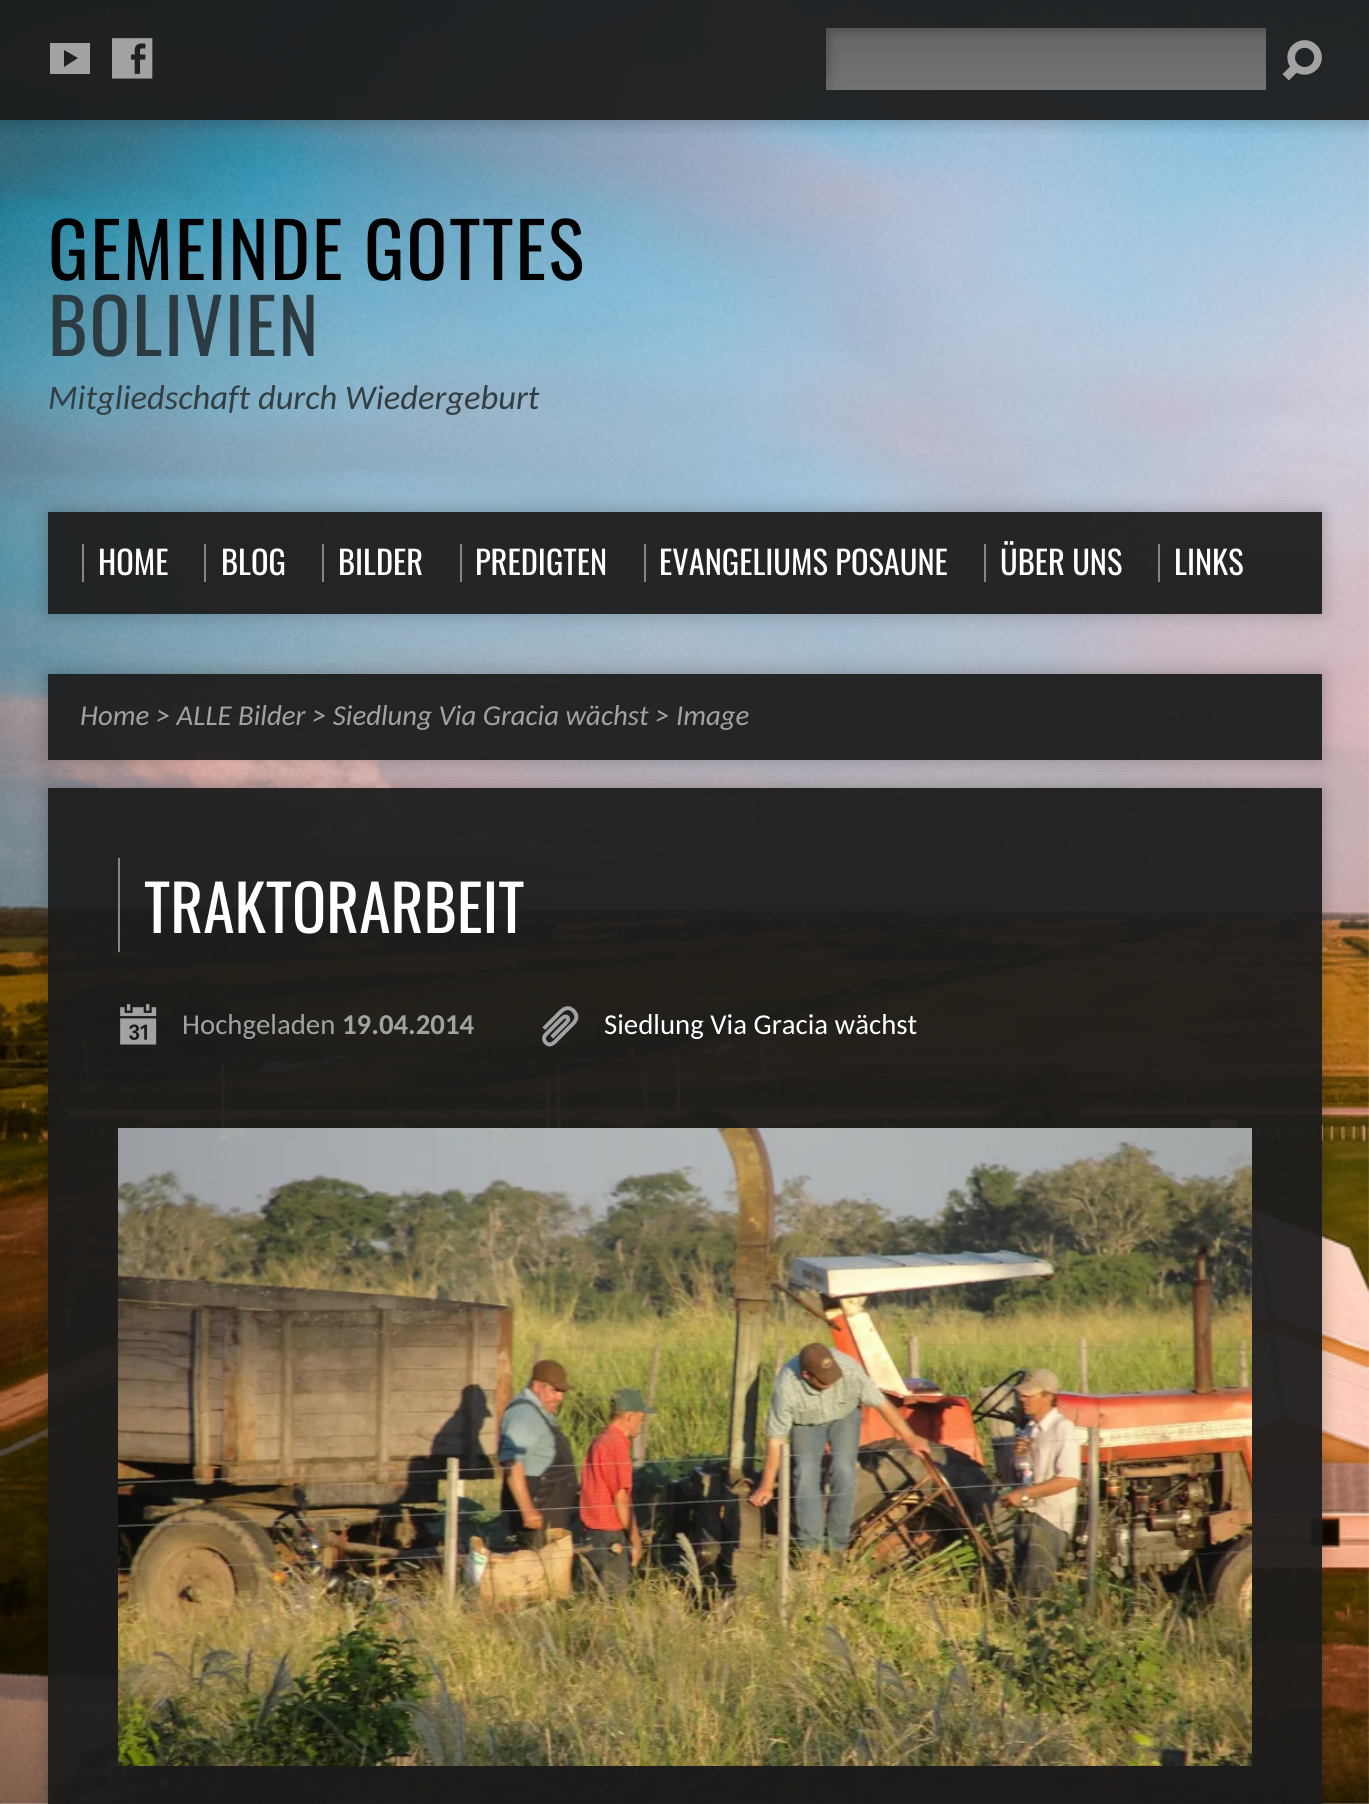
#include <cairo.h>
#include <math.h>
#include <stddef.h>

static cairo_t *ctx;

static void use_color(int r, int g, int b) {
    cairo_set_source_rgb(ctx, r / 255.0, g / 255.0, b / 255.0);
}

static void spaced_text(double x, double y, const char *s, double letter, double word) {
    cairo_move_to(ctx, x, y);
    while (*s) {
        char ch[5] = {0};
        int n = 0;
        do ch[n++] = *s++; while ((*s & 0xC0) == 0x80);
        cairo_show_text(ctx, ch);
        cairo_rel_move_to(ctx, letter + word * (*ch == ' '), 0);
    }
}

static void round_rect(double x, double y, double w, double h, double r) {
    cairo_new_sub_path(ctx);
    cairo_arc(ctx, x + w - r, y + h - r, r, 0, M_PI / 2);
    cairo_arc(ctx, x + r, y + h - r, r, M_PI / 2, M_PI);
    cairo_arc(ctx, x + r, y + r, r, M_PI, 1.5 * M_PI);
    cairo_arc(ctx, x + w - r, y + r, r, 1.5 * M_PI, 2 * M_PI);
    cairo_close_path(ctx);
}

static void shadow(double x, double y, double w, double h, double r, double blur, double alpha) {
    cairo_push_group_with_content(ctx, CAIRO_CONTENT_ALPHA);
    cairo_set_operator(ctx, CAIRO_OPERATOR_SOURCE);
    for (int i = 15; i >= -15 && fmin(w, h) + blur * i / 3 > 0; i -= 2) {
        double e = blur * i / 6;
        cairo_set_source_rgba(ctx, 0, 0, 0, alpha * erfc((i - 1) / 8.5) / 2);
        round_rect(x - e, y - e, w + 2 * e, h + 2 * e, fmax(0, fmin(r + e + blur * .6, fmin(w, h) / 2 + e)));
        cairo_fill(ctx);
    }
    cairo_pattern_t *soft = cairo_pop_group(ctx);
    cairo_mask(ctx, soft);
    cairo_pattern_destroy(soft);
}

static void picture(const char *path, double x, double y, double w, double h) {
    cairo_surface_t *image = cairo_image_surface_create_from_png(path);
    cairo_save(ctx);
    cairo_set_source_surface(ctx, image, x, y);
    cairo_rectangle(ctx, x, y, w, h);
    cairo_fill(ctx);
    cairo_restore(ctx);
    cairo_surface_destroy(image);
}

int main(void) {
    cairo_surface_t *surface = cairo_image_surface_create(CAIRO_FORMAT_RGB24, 1369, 1804);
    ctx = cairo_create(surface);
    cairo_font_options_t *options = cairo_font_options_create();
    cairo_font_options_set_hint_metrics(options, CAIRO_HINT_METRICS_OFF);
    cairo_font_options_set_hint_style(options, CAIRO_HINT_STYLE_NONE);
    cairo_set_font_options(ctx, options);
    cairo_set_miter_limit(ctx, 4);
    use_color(224, 224, 224);
    cairo_paint(ctx);
    picture("img1.png", 0, 0, 1369, 1804);
    cairo_save(ctx);
    cairo_rectangle(ctx, 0, 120, 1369, 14);
    cairo_clip(ctx);
    use_color(0, 0, 0);
    shadow(0, 0, 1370, 120, 0, 10, 0.25);
    cairo_restore(ctx);
    cairo_set_source_rgba(ctx, 0.11, 0.11, 0.11, 0.94);
    cairo_rectangle(ctx, 0, 0, 1369, 120);
    cairo_fill(ctx);
    use_color(162, 162, 162);
    cairo_new_path(ctx);
    cairo_move_to(ctx, 90, 74);
    cairo_line_to(ctx, 50, 74);
    cairo_line_to(ctx, 50, 43);
    cairo_line_to(ctx, 90, 43);
    cairo_close_path(ctx);
    cairo_move_to(ctx, 64, 67);
    cairo_line_to(ctx, 78, 58);
    cairo_line_to(ctx, 64, 50);
    cairo_close_path(ctx);
    cairo_fill(ctx);
    picture("img2.png", 112, 38, 41, 41);
    picture("img3.png", 826, 28, 440, 62);
    picture("img4.png", 1282, 40, 40, 41);
    cairo_select_font_face(ctx, "Oswald", CAIRO_FONT_SLANT_NORMAL, CAIRO_FONT_WEIGHT_NORMAL);
    cairo_set_font_size(ctx, 75.5);
    use_color(0, 0, 0);
    spaced_text(48, 280, "GEMEINDE GOTTES", 2, 0);
    use_color(44, 59, 65);
    spaced_text(48, 356, "BOLIVIEN", 2, 0);
    cairo_select_font_face(ctx, "Carlito", CAIRO_FONT_SLANT_ITALIC, CAIRO_FONT_WEIGHT_NORMAL);
    cairo_set_font_size(ctx, 34.5);
    use_color(51, 62, 67);
    cairo_move_to(ctx, 48, 409);
    cairo_show_text(ctx, "Mitgliedschaft durch Wiedergeburt");
    cairo_save(ctx);
    cairo_set_fill_rule(ctx, CAIRO_FILL_RULE_EVEN_ODD);
    cairo_new_path(ctx);
    cairo_move_to(ctx, 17, 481);
    cairo_line_to(ctx, 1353, 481);
    cairo_line_to(ctx, 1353, 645);
    cairo_line_to(ctx, 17, 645);
    cairo_close_path(ctx);
    cairo_move_to(ctx, 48, 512);
    cairo_line_to(ctx, 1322, 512);
    cairo_line_to(ctx, 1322, 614);
    cairo_line_to(ctx, 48, 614);
    cairo_close_path(ctx);
    cairo_clip(ctx);
    use_color(0, 0, 0);
    shadow(48, 512, 1274, 102, 0, 10, 0.25);
    cairo_restore(ctx);
    cairo_set_source_rgba(ctx, 0.11, 0.11, 0.11, 0.94);
    cairo_rectangle(ctx, 48, 512, 1274, 102);
    cairo_fill(ctx);
    use_color(134, 134, 134);
    cairo_rectangle(ctx, 82, 544, 2, 38);
    cairo_fill(ctx);
    cairo_select_font_face(ctx, "Oswald", CAIRO_FONT_SLANT_NORMAL, CAIRO_FONT_WEIGHT_NORMAL);
    cairo_set_font_size(ctx, 32.5);
    use_color(255, 255, 255);
    cairo_move_to(ctx, 98, 575);
    cairo_show_text(ctx, "HOME");
    use_color(134, 134, 134);
    cairo_rectangle(ctx, 204, 544, 2, 38);
    cairo_fill(ctx);
    use_color(255, 255, 255);
    cairo_move_to(ctx, 221, 575);
    cairo_show_text(ctx, "BLOG");
    use_color(134, 134, 134);
    cairo_rectangle(ctx, 322, 544, 2, 38);
    cairo_fill(ctx);
    use_color(255, 255, 255);
    cairo_move_to(ctx, 338, 575);
    cairo_show_text(ctx, "BILDER");
    use_color(134, 134, 134);
    cairo_rectangle(ctx, 460, 544, 2, 38);
    cairo_fill(ctx);
    use_color(255, 255, 255);
    cairo_move_to(ctx, 475, 575);
    cairo_show_text(ctx, "PREDIGTEN");
    use_color(134, 134, 134);
    cairo_rectangle(ctx, 644, 544, 2, 38);
    cairo_fill(ctx);
    use_color(255, 255, 255);
    cairo_move_to(ctx, 659, 575);
    cairo_show_text(ctx, "EVANGELIUMS POSAUNE");
    use_color(134, 134, 134);
    cairo_rectangle(ctx, 984, 544, 2, 38);
    cairo_fill(ctx);
    use_color(255, 255, 255);
    cairo_move_to(ctx, 1000, 575);
    cairo_show_text(ctx, "ÜBER UNS");
    use_color(134, 134, 134);
    cairo_rectangle(ctx, 1158, 544, 2, 38);
    cairo_fill(ctx);
    use_color(255, 255, 255);
    cairo_move_to(ctx, 1174, 575);
    cairo_show_text(ctx, "LINKS");
    cairo_save(ctx);
    cairo_set_fill_rule(ctx, CAIRO_FILL_RULE_EVEN_ODD);
    cairo_new_path(ctx);
    cairo_move_to(ctx, 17, 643);
    cairo_line_to(ctx, 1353, 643);
    cairo_line_to(ctx, 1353, 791);
    cairo_line_to(ctx, 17, 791);
    cairo_close_path(ctx);
    cairo_move_to(ctx, 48, 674);
    cairo_line_to(ctx, 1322, 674);
    cairo_line_to(ctx, 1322, 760);
    cairo_line_to(ctx, 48, 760);
    cairo_close_path(ctx);
    cairo_clip(ctx);
    use_color(0, 0, 0);
    shadow(48, 674, 1274, 86, 0, 10, 0.25);
    cairo_restore(ctx);
    cairo_set_source_rgba(ctx, 0.11, 0.11, 0.11, 0.94);
    cairo_rectangle(ctx, 48, 674, 1274, 86);
    cairo_fill(ctx);
    cairo_select_font_face(ctx, "Carlito", CAIRO_FONT_SLANT_ITALIC, CAIRO_FONT_WEIGHT_NORMAL);
    cairo_set_font_size(ctx, 28.8);
    use_color(162, 162, 162);
    cairo_move_to(ctx, 80, 725);
    cairo_show_text(ctx, "Home > ALLE Bilder > Siedlung Via Gracia wächst > Image");
    cairo_save(ctx);
    cairo_set_fill_rule(ctx, CAIRO_FILL_RULE_EVEN_ODD);
    cairo_new_path(ctx);
    cairo_move_to(ctx, 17, 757);
    cairo_line_to(ctx, 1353, 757);
    cairo_line_to(ctx, 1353, 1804);
    cairo_line_to(ctx, 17, 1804);
    cairo_close_path(ctx);
    cairo_move_to(ctx, 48, 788);
    cairo_line_to(ctx, 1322, 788);
    cairo_line_to(ctx, 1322, 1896);
    cairo_line_to(ctx, 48, 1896);
    cairo_close_path(ctx);
    cairo_clip(ctx);
    use_color(0, 0, 0);
    shadow(48, 788, 1274, 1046, 0, 10, 0.25);
    cairo_restore(ctx);
    cairo_set_source_rgba(ctx, 0.11, 0.11, 0.11, 0.94);
    cairo_rectangle(ctx, 48, 788, 1274, 1016);
    cairo_fill(ctx);
    use_color(134, 134, 134);
    cairo_rectangle(ctx, 118, 858, 2, 94);
    cairo_fill(ctx);
    cairo_select_font_face(ctx, "Oswald", CAIRO_FONT_SLANT_NORMAL, CAIRO_FONT_WEIGHT_NORMAL);
    cairo_set_font_size(ctx, 63.5);
    use_color(255, 255, 255);
    cairo_move_to(ctx, 144, 933);
    cairo_show_text(ctx, "TRAKTORARBEIT");
    picture("img5.png", 120, 1004, 37, 41);
    cairo_select_font_face(ctx, "Carlito", CAIRO_FONT_SLANT_NORMAL, CAIRO_FONT_WEIGHT_NORMAL);
    cairo_set_font_size(ctx, 28.8);
    use_color(162, 162, 162);
    cairo_move_to(ctx, 182, 1034);
    cairo_show_text(ctx, "Hochgeladen");
    cairo_select_font_face(ctx, "Carlito", CAIRO_FONT_SLANT_NORMAL, CAIRO_FONT_WEIGHT_BOLD);
    cairo_move_to(ctx, 342, 1034);
    cairo_show_text(ctx, "19.04.2014");
    picture("img6.png", 542, 1006, 37, 41);
    cairo_select_font_face(ctx, "Carlito", CAIRO_FONT_SLANT_NORMAL, CAIRO_FONT_WEIGHT_NORMAL);
    use_color(255, 255, 255);
    cairo_move_to(ctx, 604, 1034);
    cairo_show_text(ctx, "Siedlung Via Gracia wächst");
    picture("img7.png", 118, 1128, 1134, 638);
    cairo_surface_write_to_png(surface, "result.png");
    cairo_font_options_destroy(options);
    cairo_destroy(ctx);
    cairo_surface_destroy(surface);
    return 0;
}
